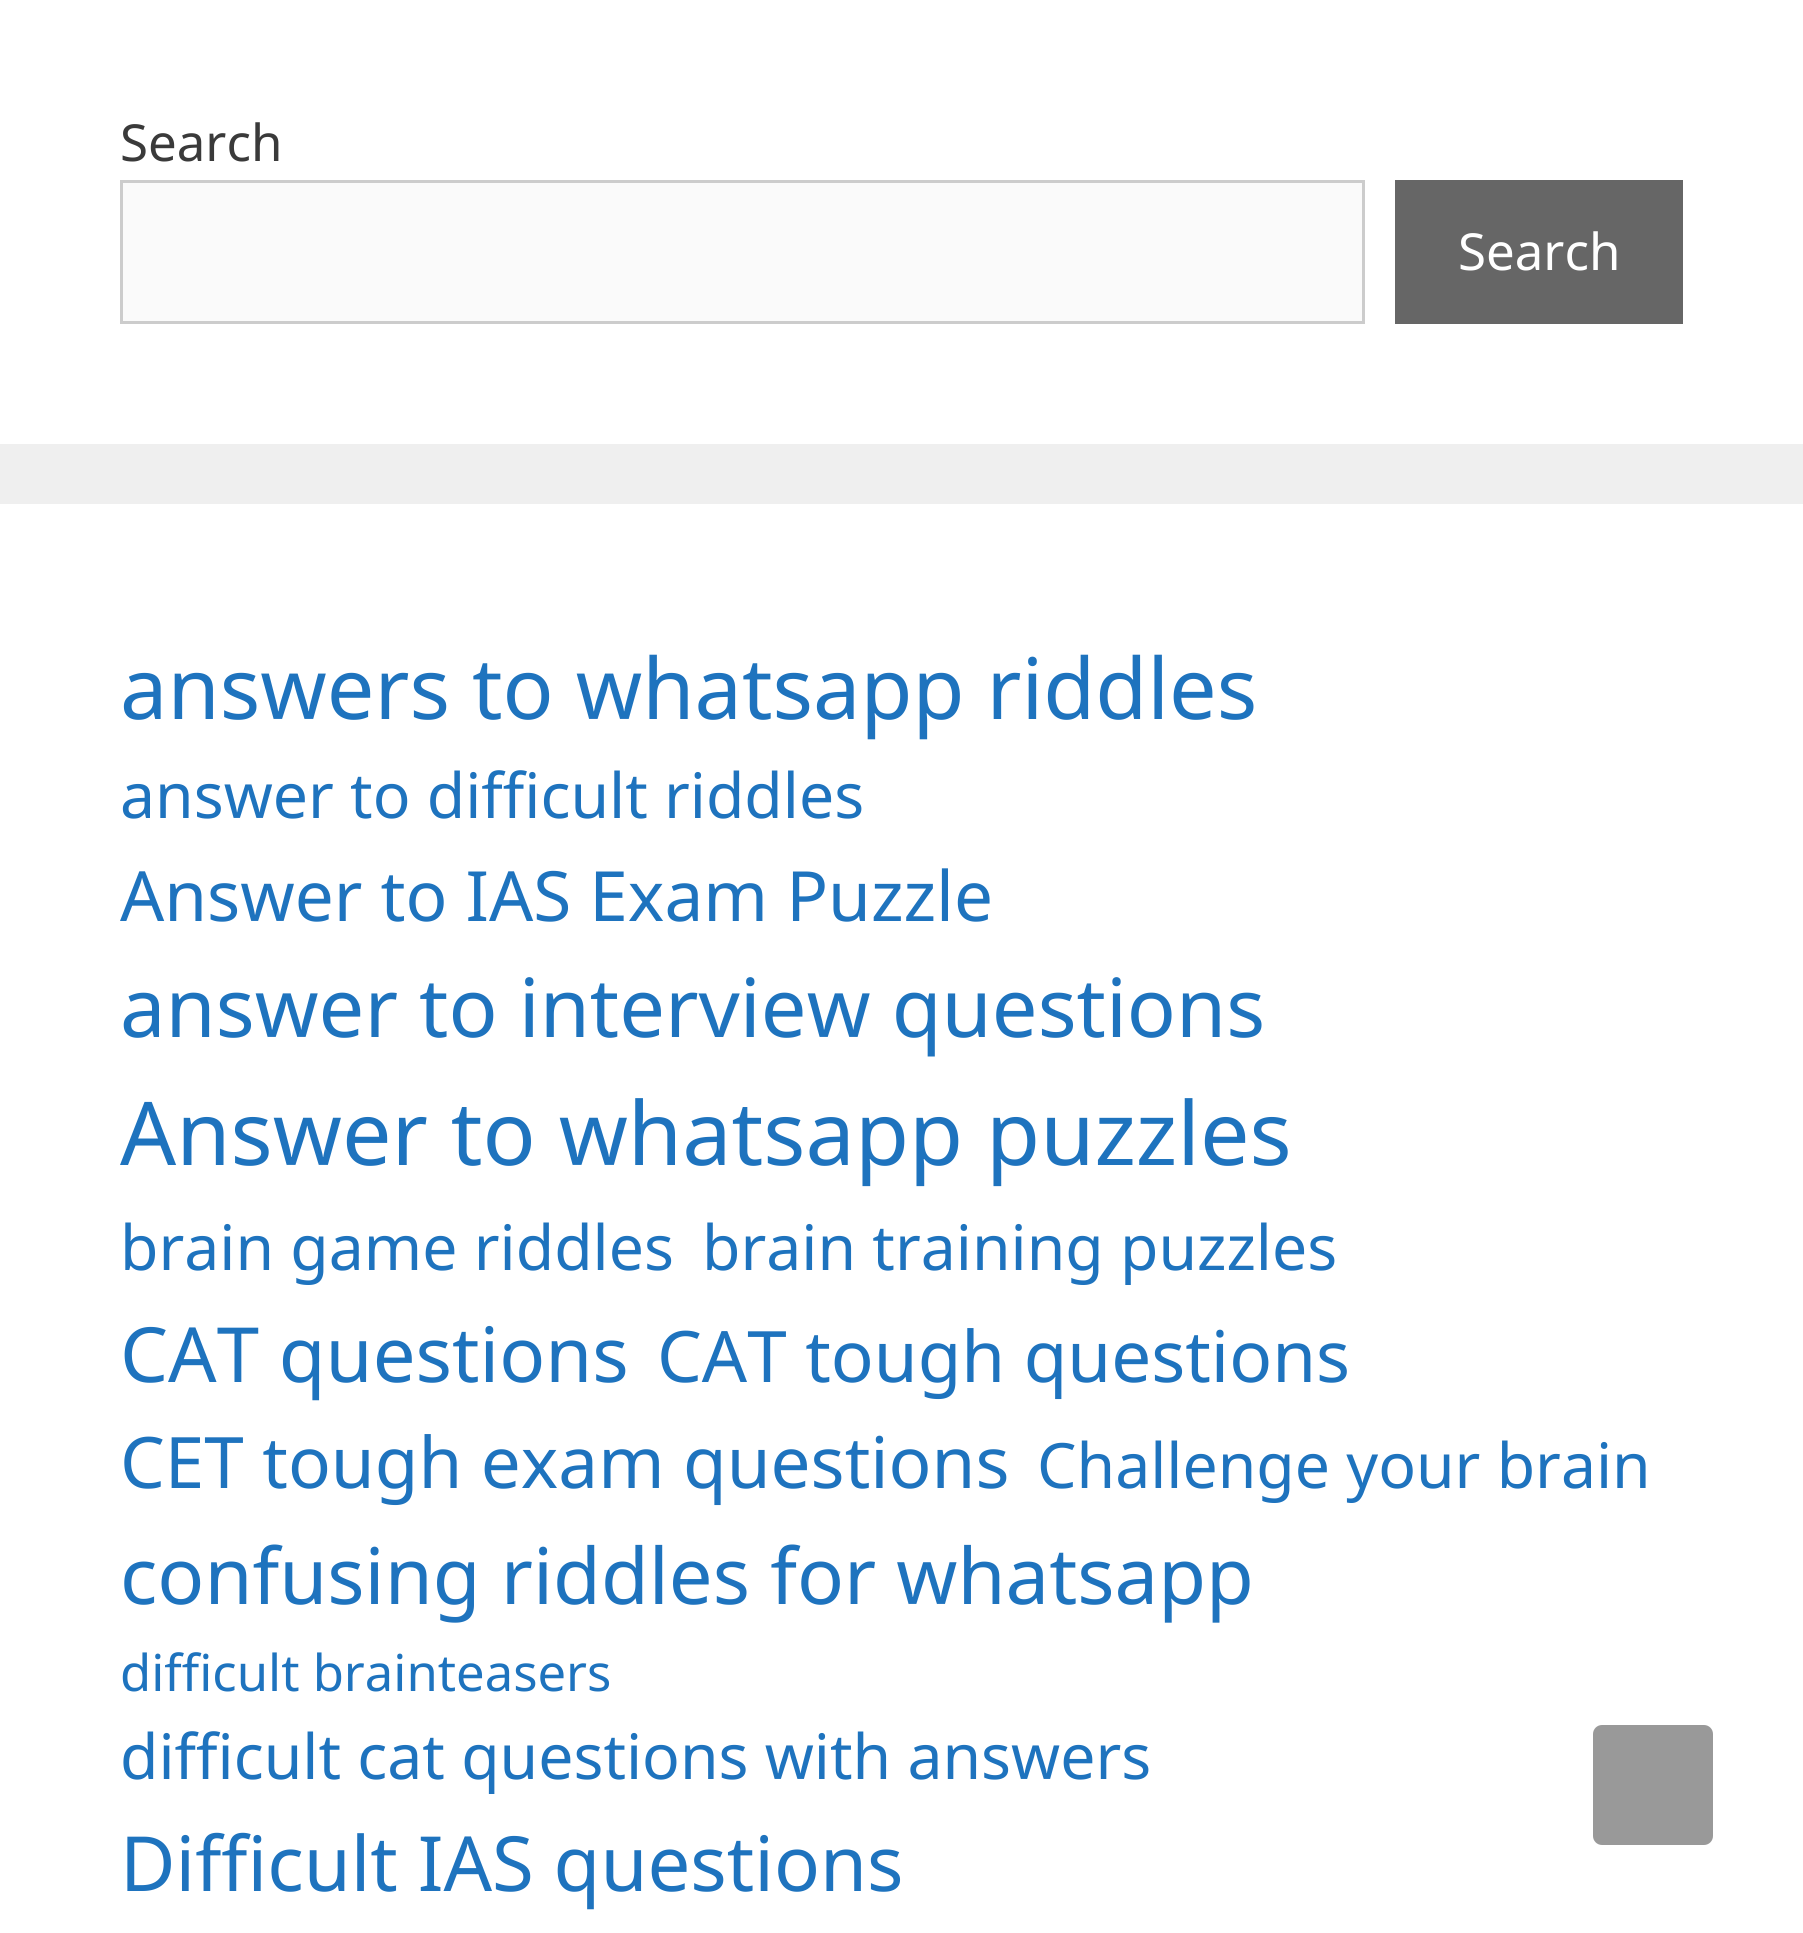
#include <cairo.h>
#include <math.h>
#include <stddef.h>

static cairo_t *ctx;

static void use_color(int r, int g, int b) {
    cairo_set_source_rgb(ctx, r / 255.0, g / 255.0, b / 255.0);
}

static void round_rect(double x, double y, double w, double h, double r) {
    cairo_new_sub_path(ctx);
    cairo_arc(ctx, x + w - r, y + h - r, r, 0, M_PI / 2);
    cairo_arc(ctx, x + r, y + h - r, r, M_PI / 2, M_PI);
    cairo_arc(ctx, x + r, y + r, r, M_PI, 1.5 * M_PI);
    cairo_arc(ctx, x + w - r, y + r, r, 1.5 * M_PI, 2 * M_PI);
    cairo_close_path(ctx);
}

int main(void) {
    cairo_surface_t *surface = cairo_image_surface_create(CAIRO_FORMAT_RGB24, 1803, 1933);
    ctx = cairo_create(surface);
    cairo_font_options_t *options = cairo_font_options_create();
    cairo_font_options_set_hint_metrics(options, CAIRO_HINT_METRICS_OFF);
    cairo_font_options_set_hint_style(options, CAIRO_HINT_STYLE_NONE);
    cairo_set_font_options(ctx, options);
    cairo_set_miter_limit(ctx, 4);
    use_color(239, 239, 239);
    cairo_paint(ctx);
    use_color(255, 255, 255);
    cairo_rectangle(ctx, 0, 0, 1803, 444);
    cairo_fill(ctx);
    cairo_select_font_face(ctx, "Noto Sans", CAIRO_FONT_SLANT_NORMAL, CAIRO_FONT_WEIGHT_NORMAL);
    cairo_set_font_size(ctx, 51);
    use_color(58, 58, 58);
    cairo_move_to(ctx, 120, 161);
    cairo_show_text(ctx, "Search");
    use_color(250, 250, 250);
    cairo_rectangle(ctx, 121.5, 181.5, 1242, 141);
    cairo_fill_preserve(ctx);
    use_color(204, 204, 204);
    cairo_set_line_width(ctx, 3);
    cairo_stroke(ctx);
    use_color(102, 102, 102);
    cairo_rectangle(ctx, 1395, 180, 288, 144);
    cairo_fill(ctx);
    use_color(255, 255, 255);
    cairo_move_to(ctx, 1458, 270);
    cairo_show_text(ctx, "Search");
    cairo_rectangle(ctx, 0, 504, 1803, 1429);
    cairo_fill(ctx);
    cairo_set_font_size(ctx, 84.6);
    use_color(30, 115, 190);
    cairo_move_to(ctx, 120, 719);
    cairo_show_text(ctx, "answers to whatsapp riddles");
    cairo_set_font_size(ctx, 62.5);
    cairo_move_to(ctx, 120, 818);
    cairo_show_text(ctx, "answer to difficult riddles");
    cairo_set_font_size(ctx, 69.3);
    cairo_move_to(ctx, 120, 921);
    cairo_show_text(ctx, "Answer to IAS Exam Puzzle");
    cairo_set_font_size(ctx, 81.25);
    cairo_move_to(ctx, 120, 1037);
    cairo_show_text(ctx, "answer to interview questions");
    cairo_set_font_size(ctx, 88);
    cairo_move_to(ctx, 120, 1165);
    cairo_show_text(ctx, "Answer to whatsapp puzzles");
    cairo_set_font_size(ctx, 62.5);
    cairo_move_to(ctx, 120, 1270);
    cairo_show_text(ctx, "brain game riddles");
    cairo_move_to(ctx, 702, 1270);
    cairo_show_text(ctx, "brain training puzzles");
    cairo_set_font_size(ctx, 76.1);
    cairo_move_to(ctx, 120, 1382);
    cairo_show_text(ctx, "CAT questions");
    cairo_set_font_size(ctx, 71);
    cairo_move_to(ctx, 657, 1382);
    cairo_show_text(ctx, "CAT tough questions");
    cairo_move_to(ctx, 120, 1488);
    cairo_show_text(ctx, "CET tough exam questions");
    cairo_set_font_size(ctx, 62.5);
    cairo_move_to(ctx, 1037, 1488);
    cairo_show_text(ctx, "Challenge your brain");
    cairo_set_font_size(ctx, 77.8);
    cairo_move_to(ctx, 120, 1604);
    cairo_show_text(ctx, "confusing riddles for whatsapp");
    cairo_set_font_size(ctx, 50.75);
    cairo_move_to(ctx, 120, 1691);
    cairo_show_text(ctx, "difficult brainteasers");
    cairo_set_font_size(ctx, 62.5);
    cairo_move_to(ctx, 120, 1779);
    cairo_show_text(ctx, "difficult cat questions with answers");
    cairo_set_font_size(ctx, 76.1);
    cairo_move_to(ctx, 120, 1891);
    cairo_show_text(ctx, "Difficult IAS questions");
    use_color(153, 153, 153);
    round_rect(1593, 1725, 120, 120, 9);
    cairo_fill(ctx);
    cairo_surface_write_to_png(surface, "result.png");
    cairo_font_options_destroy(options);
    cairo_destroy(ctx);
    cairo_surface_destroy(surface);
    return 0;
}
